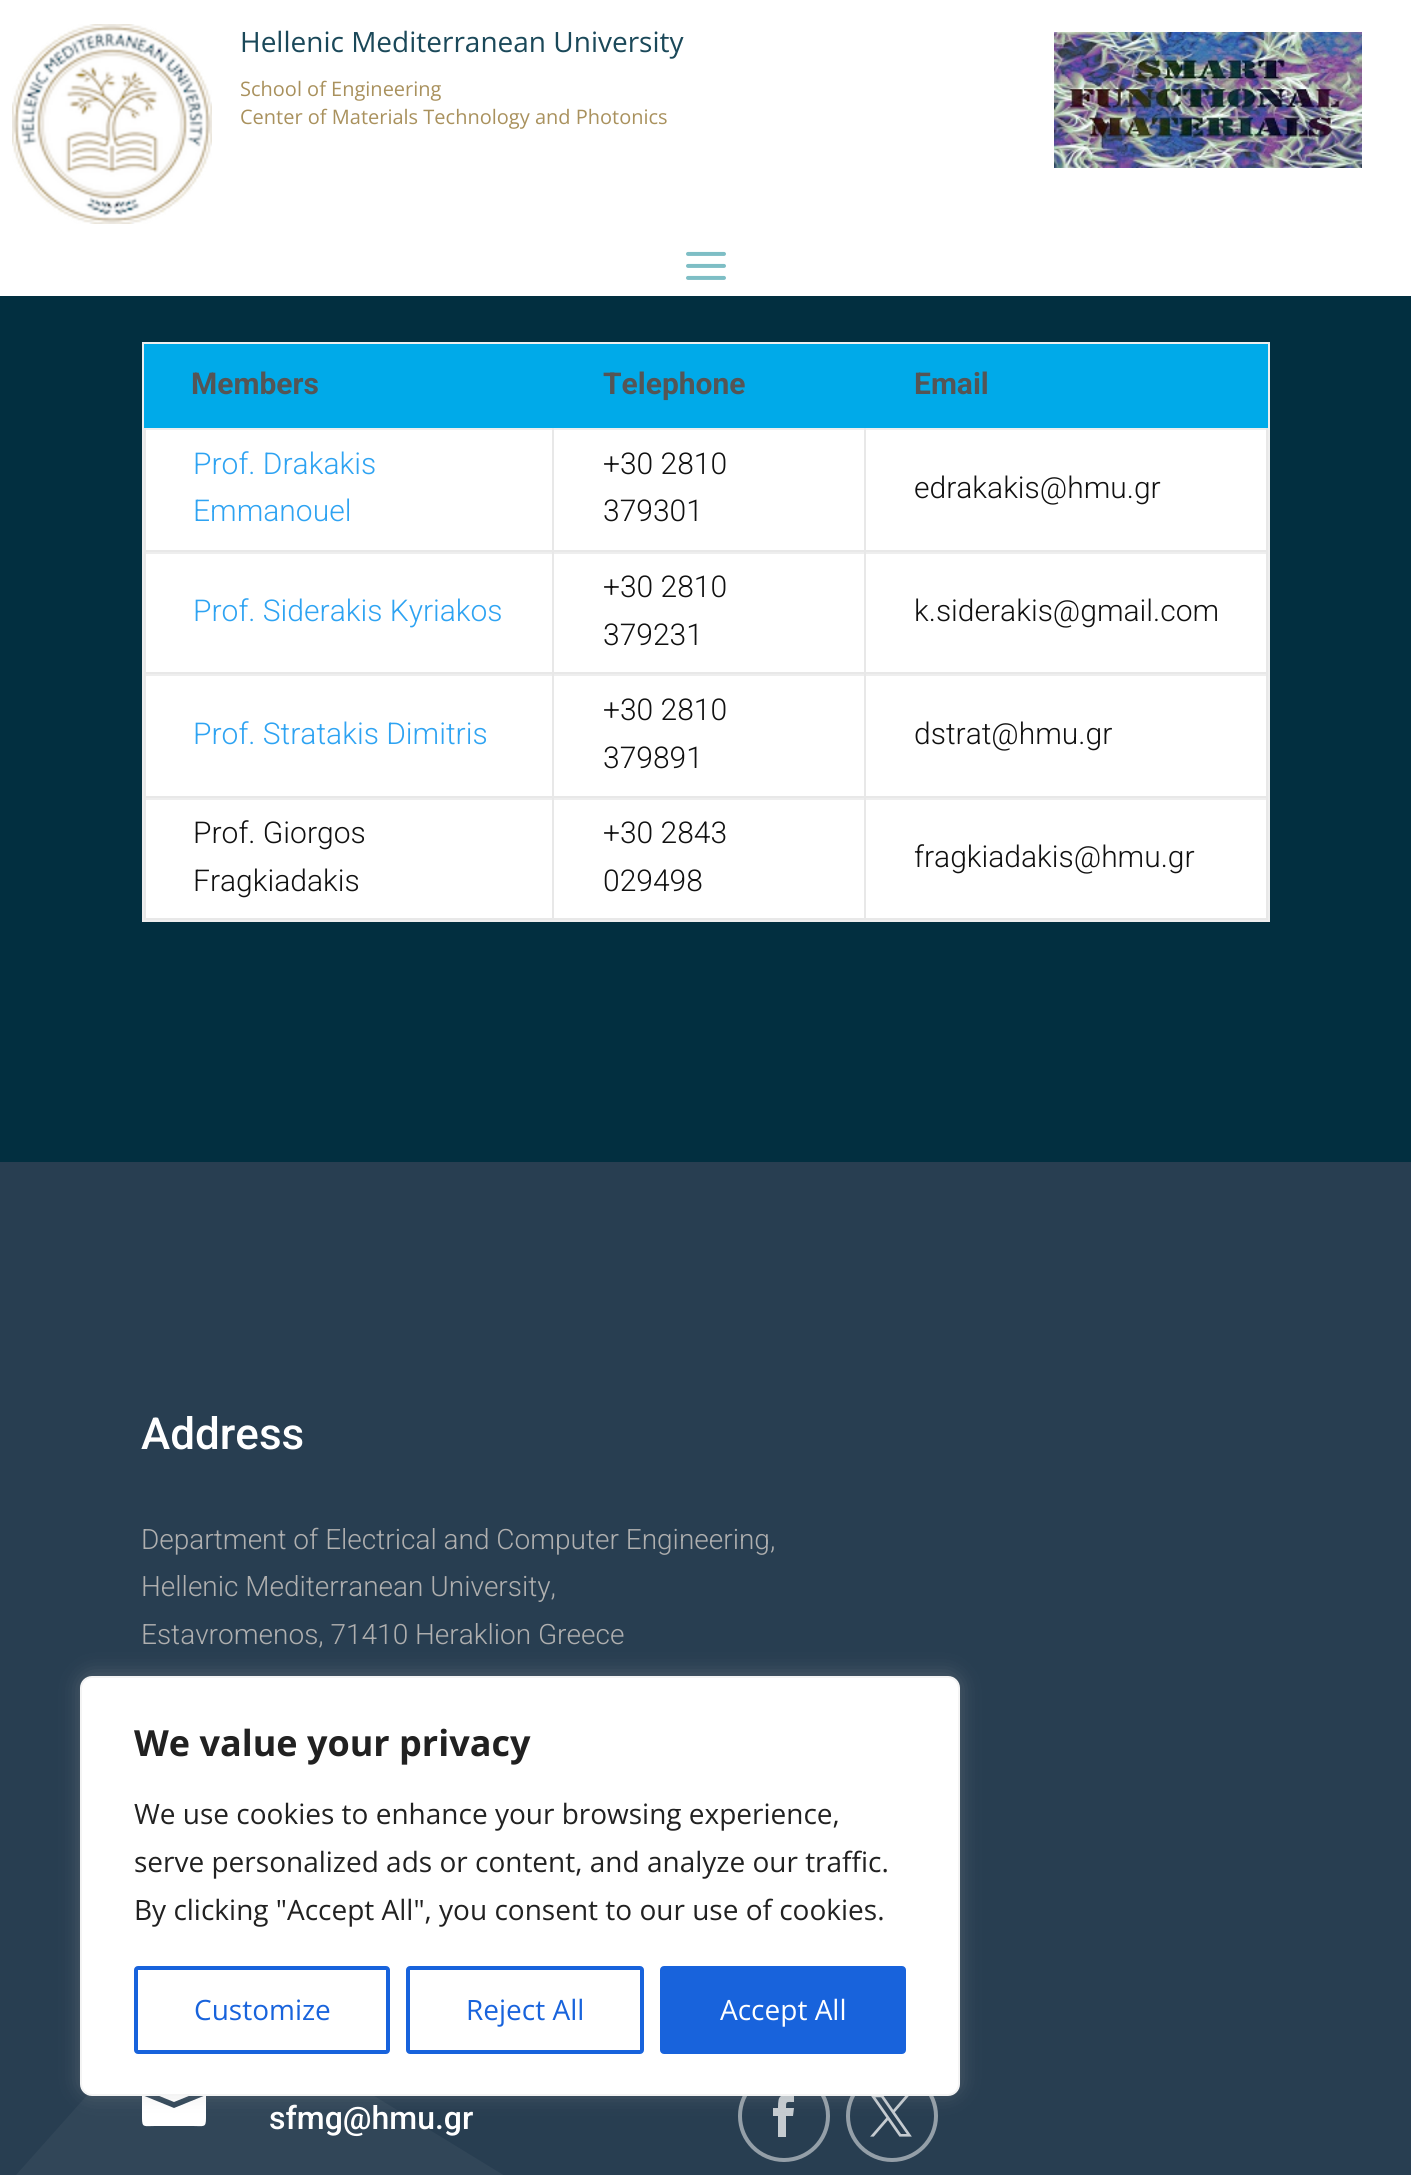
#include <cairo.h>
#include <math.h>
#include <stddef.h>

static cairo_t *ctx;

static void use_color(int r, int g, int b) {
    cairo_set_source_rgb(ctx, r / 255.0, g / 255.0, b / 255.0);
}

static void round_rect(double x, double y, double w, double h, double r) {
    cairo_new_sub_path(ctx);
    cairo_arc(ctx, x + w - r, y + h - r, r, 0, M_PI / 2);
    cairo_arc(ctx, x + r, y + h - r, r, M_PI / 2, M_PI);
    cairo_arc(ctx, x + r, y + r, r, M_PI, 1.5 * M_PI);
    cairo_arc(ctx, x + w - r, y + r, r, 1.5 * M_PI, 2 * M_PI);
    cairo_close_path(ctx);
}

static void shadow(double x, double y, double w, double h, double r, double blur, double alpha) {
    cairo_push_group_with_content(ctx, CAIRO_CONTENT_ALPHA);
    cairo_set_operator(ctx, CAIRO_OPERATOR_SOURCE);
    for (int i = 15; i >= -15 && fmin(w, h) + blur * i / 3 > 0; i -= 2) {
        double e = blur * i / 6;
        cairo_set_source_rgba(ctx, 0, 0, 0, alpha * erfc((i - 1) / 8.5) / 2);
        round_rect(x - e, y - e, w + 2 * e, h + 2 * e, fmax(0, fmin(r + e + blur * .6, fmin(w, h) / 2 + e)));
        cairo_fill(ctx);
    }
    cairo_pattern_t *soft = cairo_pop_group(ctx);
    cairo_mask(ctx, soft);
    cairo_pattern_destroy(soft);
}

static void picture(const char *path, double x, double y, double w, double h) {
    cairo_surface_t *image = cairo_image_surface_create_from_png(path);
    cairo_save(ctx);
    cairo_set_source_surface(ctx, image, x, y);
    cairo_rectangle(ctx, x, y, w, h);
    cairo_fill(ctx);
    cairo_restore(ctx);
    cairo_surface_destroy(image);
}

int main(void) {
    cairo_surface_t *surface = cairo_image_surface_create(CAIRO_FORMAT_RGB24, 1411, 2175);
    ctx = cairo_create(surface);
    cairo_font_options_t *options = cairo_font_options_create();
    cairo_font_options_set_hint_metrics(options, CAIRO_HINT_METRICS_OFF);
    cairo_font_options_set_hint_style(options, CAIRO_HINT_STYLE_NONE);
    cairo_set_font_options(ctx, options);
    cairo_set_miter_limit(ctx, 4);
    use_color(2, 47, 64);
    cairo_paint(ctx);
    use_color(255, 255, 255);
    cairo_rectangle(ctx, 0, 0, 1411, 296);
    cairo_fill(ctx);
    picture("img1.png", 12, 24, 200, 200);
    cairo_select_font_face(ctx, "Open Sans", CAIRO_FONT_SLANT_NORMAL, CAIRO_FONT_WEIGHT_NORMAL);
    cairo_set_font_size(ctx, 28);
    use_color(26, 72, 89);
    cairo_move_to(ctx, 240, 52);
    cairo_show_text(ctx, "Hellenic Mediterranean University");
    cairo_set_font_size(ctx, 20);
    use_color(169, 145, 93);
    cairo_move_to(ctx, 240, 96);
    cairo_show_text(ctx, "School of Engineering");
    cairo_move_to(ctx, 240, 124);
    cairo_show_text(ctx, "Center of Materials Technology and Photonics");
    picture("img2.png", 1054, 32, 308, 136);
    picture("img3.png", 686, 251, 40, 29);
    cairo_rectangle(ctx, 143, 343, 1126, 578);
    use_color(238, 238, 238);
    cairo_stroke(ctx);
    use_color(0, 170, 233);
    cairo_rectangle(ctx, 144, 344, 1124, 84);
    cairo_fill(ctx);
    cairo_select_font_face(ctx, "Roboto", CAIRO_FONT_SLANT_NORMAL, CAIRO_FONT_WEIGHT_BOLD);
    cairo_set_font_size(ctx, 30);
    use_color(85, 85, 85);
    cairo_move_to(ctx, 191, 394);
    cairo_show_text(ctx, "Members");
    cairo_move_to(ctx, 603, 394);
    cairo_show_text(ctx, "Telephone");
    cairo_move_to(ctx, 914, 394);
    cairo_show_text(ctx, "Email");
    use_color(255, 255, 255);
    cairo_rectangle(ctx, 146, 430, 406, 120);
    cairo_fill(ctx);
    use_color(238, 238, 238);
    cairo_rectangle(ctx, 144, 428, 1124, 2);
    cairo_fill(ctx);
    use_color(232, 232, 232);
    cairo_rectangle(ctx, 552, 428, 2, 124);
    cairo_fill(ctx);
    cairo_rectangle(ctx, 144, 550, 410, 2);
    cairo_fill(ctx);
    cairo_rectangle(ctx, 144, 428, 2, 124);
    cairo_fill(ctx);
    cairo_select_font_face(ctx, "Roboto Light", CAIRO_FONT_SLANT_NORMAL, CAIRO_FONT_WEIGHT_NORMAL);
    use_color(46, 163, 242);
    cairo_move_to(ctx, 193, 474);
    cairo_show_text(ctx, "Prof. Drakakis");
    cairo_move_to(ctx, 193, 521);
    cairo_show_text(ctx, "Emmanouel");
    use_color(255, 255, 255);
    cairo_rectangle(ctx, 554, 430, 310, 120);
    cairo_fill(ctx);
    use_color(232, 232, 232);
    cairo_rectangle(ctx, 864, 428, 2, 124);
    cairo_fill(ctx);
    cairo_rectangle(ctx, 554, 550, 312, 2);
    cairo_fill(ctx);
    use_color(17, 17, 17);
    cairo_move_to(ctx, 603, 474);
    cairo_show_text(ctx, "+30 2810");
    cairo_move_to(ctx, 603, 521);
    cairo_show_text(ctx, "379301");
    use_color(255, 255, 255);
    cairo_rectangle(ctx, 866, 430, 400, 120);
    cairo_fill(ctx);
    use_color(232, 232, 232);
    cairo_rectangle(ctx, 1266, 428, 2, 124);
    cairo_fill(ctx);
    cairo_rectangle(ctx, 866, 550, 402, 2);
    cairo_fill(ctx);
    use_color(17, 17, 17);
    cairo_move_to(ctx, 914, 498);
    cairo_show_text(ctx, "edrakakis@hmu.gr");
    use_color(255, 255, 255);
    cairo_rectangle(ctx, 146, 554, 406, 118);
    cairo_fill(ctx);
    use_color(238, 238, 238);
    cairo_rectangle(ctx, 144, 552, 1124, 2);
    cairo_fill(ctx);
    use_color(232, 232, 232);
    cairo_rectangle(ctx, 552, 552, 2, 122);
    cairo_fill(ctx);
    cairo_rectangle(ctx, 144, 672, 410, 2);
    cairo_fill(ctx);
    cairo_rectangle(ctx, 144, 552, 2, 122);
    cairo_fill(ctx);
    use_color(46, 163, 242);
    cairo_move_to(ctx, 193, 621);
    cairo_show_text(ctx, "Prof. Siderakis Kyriakos");
    use_color(255, 255, 255);
    cairo_rectangle(ctx, 554, 554, 310, 118);
    cairo_fill(ctx);
    use_color(232, 232, 232);
    cairo_rectangle(ctx, 864, 552, 2, 122);
    cairo_fill(ctx);
    cairo_rectangle(ctx, 554, 672, 312, 2);
    cairo_fill(ctx);
    use_color(17, 17, 17);
    cairo_move_to(ctx, 603, 597);
    cairo_show_text(ctx, "+30 2810");
    cairo_move_to(ctx, 603, 645);
    cairo_show_text(ctx, "379231");
    use_color(255, 255, 255);
    cairo_rectangle(ctx, 866, 554, 400, 118);
    cairo_fill(ctx);
    use_color(232, 232, 232);
    cairo_rectangle(ctx, 1266, 552, 2, 122);
    cairo_fill(ctx);
    cairo_rectangle(ctx, 866, 672, 402, 2);
    cairo_fill(ctx);
    use_color(17, 17, 17);
    cairo_move_to(ctx, 914, 621);
    cairo_show_text(ctx, "k.siderakis@gmail.com");
    use_color(255, 255, 255);
    cairo_rectangle(ctx, 146, 676, 406, 120);
    cairo_fill(ctx);
    use_color(238, 238, 238);
    cairo_rectangle(ctx, 144, 674, 1124, 2);
    cairo_fill(ctx);
    use_color(232, 232, 232);
    cairo_rectangle(ctx, 552, 674, 2, 124);
    cairo_fill(ctx);
    cairo_rectangle(ctx, 144, 796, 410, 2);
    cairo_fill(ctx);
    cairo_rectangle(ctx, 144, 674, 2, 124);
    cairo_fill(ctx);
    use_color(46, 163, 242);
    cairo_move_to(ctx, 193, 744);
    cairo_show_text(ctx, "Prof. Stratakis Dimitris");
    use_color(255, 255, 255);
    cairo_rectangle(ctx, 554, 676, 310, 120);
    cairo_fill(ctx);
    use_color(232, 232, 232);
    cairo_rectangle(ctx, 864, 674, 2, 124);
    cairo_fill(ctx);
    cairo_rectangle(ctx, 554, 796, 312, 2);
    cairo_fill(ctx);
    use_color(17, 17, 17);
    cairo_move_to(ctx, 603, 720);
    cairo_show_text(ctx, "+30 2810");
    cairo_move_to(ctx, 603, 768);
    cairo_show_text(ctx, "379891");
    use_color(255, 255, 255);
    cairo_rectangle(ctx, 866, 676, 400, 120);
    cairo_fill(ctx);
    use_color(232, 232, 232);
    cairo_rectangle(ctx, 1266, 674, 2, 124);
    cairo_fill(ctx);
    cairo_rectangle(ctx, 866, 796, 402, 2);
    cairo_fill(ctx);
    use_color(17, 17, 17);
    cairo_move_to(ctx, 914, 744);
    cairo_show_text(ctx, "dstrat@hmu.gr");
    use_color(255, 255, 255);
    cairo_rectangle(ctx, 146, 800, 406, 118);
    cairo_fill(ctx);
    use_color(238, 238, 238);
    cairo_rectangle(ctx, 144, 798, 1124, 2);
    cairo_fill(ctx);
    use_color(232, 232, 232);
    cairo_rectangle(ctx, 552, 798, 2, 122);
    cairo_fill(ctx);
    cairo_rectangle(ctx, 144, 918, 410, 2);
    cairo_fill(ctx);
    cairo_rectangle(ctx, 144, 798, 2, 122);
    cairo_fill(ctx);
    use_color(17, 17, 17);
    cairo_move_to(ctx, 193, 843);
    cairo_show_text(ctx, "Prof. Giorgos");
    cairo_move_to(ctx, 193, 891);
    cairo_show_text(ctx, "Fragkiadakis");
    use_color(255, 255, 255);
    cairo_rectangle(ctx, 554, 800, 310, 118);
    cairo_fill(ctx);
    use_color(232, 232, 232);
    cairo_rectangle(ctx, 864, 798, 2, 122);
    cairo_fill(ctx);
    cairo_rectangle(ctx, 554, 918, 312, 2);
    cairo_fill(ctx);
    use_color(17, 17, 17);
    cairo_move_to(ctx, 603, 843);
    cairo_show_text(ctx, "+30 2843");
    cairo_move_to(ctx, 603, 891);
    cairo_show_text(ctx, "029498");
    use_color(255, 255, 255);
    cairo_rectangle(ctx, 866, 800, 400, 118);
    cairo_fill(ctx);
    use_color(232, 232, 232);
    cairo_rectangle(ctx, 1266, 798, 2, 122);
    cairo_fill(ctx);
    cairo_rectangle(ctx, 866, 918, 402, 2);
    cairo_fill(ctx);
    use_color(17, 17, 17);
    cairo_move_to(ctx, 914, 867);
    cairo_show_text(ctx, "fragkiadakis@hmu.gr");
    use_color(40, 62, 81);
    cairo_rectangle(ctx, 0, 1162, 1411, 1013);
    cairo_fill(ctx);
    cairo_select_font_face(ctx, "Roboto Medium", CAIRO_FONT_SLANT_NORMAL, CAIRO_FONT_WEIGHT_NORMAL);
    cairo_set_font_size(ctx, 44);
    use_color(255, 255, 255);
    cairo_move_to(ctx, 141, 1449);
    cairo_show_text(ctx, "Address");
    cairo_select_font_face(ctx, "Roboto Light", CAIRO_FONT_SLANT_NORMAL, CAIRO_FONT_WEIGHT_NORMAL);
    cairo_set_font_size(ctx, 28);
    use_color(175, 175, 175);
    cairo_move_to(ctx, 141, 1549);
    cairo_show_text(ctx, "Department of Electrical and Computer Engineering,");
    cairo_move_to(ctx, 141, 1596);
    cairo_show_text(ctx, "Hellenic Mediterranean University,");
    cairo_move_to(ctx, 141, 1644);
    cairo_show_text(ctx, "Estavromenos, 71410 Heraklion Greece");
    use_color(49, 70, 88);
    cairo_new_path(ctx);
    cairo_move_to(ctx, 0, 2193);
    cairo_line_to(ctx, 188, 1982);
    cairo_line_to(ctx, 879, 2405);
    cairo_line_to(ctx, 1224, 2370);
    cairo_line_to(ctx, 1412, 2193);
    cairo_line_to(ctx, 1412, 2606);
    cairo_line_to(ctx, 0, 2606);
    cairo_close_path(ctx);
    cairo_fill(ctx);
    use_color(255, 255, 255);
    cairo_new_path(ctx);
    cairo_move_to(ctx, 202, 2078);
    cairo_line_to(ctx, 146, 2078);
    cairo_curve_to(ctx, 141, 2078, 142, 2085, 142, 2089);
    cairo_line_to(ctx, 174, 2102);
    cairo_line_to(ctx, 206, 2089);
    cairo_curve_to(ctx, 206, 2085, 207, 2078, 202, 2078);
    cairo_close_path(ctx);
    cairo_move_to(ctx, 142, 2095);
    cairo_line_to(ctx, 142, 2118);
    cairo_curve_to(ctx, 142, 2128, 144, 2126, 155, 2126);
    cairo_line_to(ctx, 193, 2126);
    cairo_curve_to(ctx, 204, 2126, 206, 2128, 206, 2118);
    cairo_line_to(ctx, 206, 2095);
    cairo_line_to(ctx, 174, 2108);
    cairo_close_path(ctx);
    cairo_move_to(ctx, 206, 2130);
    cairo_close_path(ctx);
    cairo_move_to(ctx, 238, 2130);
    cairo_close_path(ctx);
    cairo_fill(ctx);
    cairo_select_font_face(ctx, "Roboto Medium", CAIRO_FONT_SLANT_NORMAL, CAIRO_FONT_WEIGHT_NORMAL);
    cairo_set_font_size(ctx, 32);
    cairo_move_to(ctx, 269, 2129);
    cairo_show_text(ctx, "sfmg@hmu.gr");
    cairo_new_path(ctx);
    cairo_arc(ctx, 784, 2116, 44, 0, 2 * M_PI);
    use_color(148, 159, 168);
    cairo_set_line_width(ctx, 4);
    cairo_stroke(ctx);
    use_color(197, 203, 208);
    cairo_new_path(ctx);
    cairo_move_to(ctx, 778, 2137);
    cairo_line_to(ctx, 786, 2137);
    cairo_line_to(ctx, 786, 2116);
    cairo_line_to(ctx, 793, 2116);
    cairo_line_to(ctx, 794, 2108);
    cairo_line_to(ctx, 786, 2108);
    cairo_curve_to(ctx, 786, 2101, 786, 2102, 794, 2102);
    cairo_line_to(ctx, 794, 2095);
    cairo_curve_to(ctx, 780, 2095, 778, 2094, 778, 2108);
    cairo_line_to(ctx, 773, 2108);
    cairo_line_to(ctx, 773, 2116);
    cairo_line_to(ctx, 778, 2116);
    cairo_close_path(ctx);
    cairo_fill(ctx);
    cairo_arc(ctx, 892, 2116, 44, 0, 2 * M_PI);
    use_color(148, 159, 168);
    cairo_stroke(ctx);
    picture("img4.png", 870, 2096, 42, 41);
    use_color(172, 171, 171);
    shadow(80, 1674, 880, 420, 12, 10, 0.3);
    use_color(255, 255, 255);
    round_rect(81, 1677, 878, 418, 11);
    cairo_fill_preserve(ctx);
    use_color(244, 244, 244);
    cairo_set_line_width(ctx, 2);
    cairo_stroke(ctx);
    cairo_select_font_face(ctx, "Open Sans", CAIRO_FONT_SLANT_NORMAL, CAIRO_FONT_WEIGHT_BOLD);
    cairo_set_font_size(ctx, 36);
    use_color(33, 33, 33);
    cairo_move_to(ctx, 134, 1756);
    cairo_show_text(ctx, "We value your privacy");
    cairo_select_font_face(ctx, "Open Sans", CAIRO_FONT_SLANT_NORMAL, CAIRO_FONT_WEIGHT_NORMAL);
    cairo_set_font_size(ctx, 28);
    cairo_move_to(ctx, 134, 1824);
    cairo_show_text(ctx, "We use cookies to enhance your browsing experience,");
    cairo_move_to(ctx, 134, 1872);
    cairo_show_text(ctx, "serve personalized ads or content, and analyze our traffic.");
    cairo_move_to(ctx, 134, 1920);
    cairo_show_text(ctx, "By clicking \"Accept All\", you consent to our use of cookies.");
    round_rect(136, 1968, 252, 84, 2);
    use_color(24, 99, 220);
    cairo_set_line_width(ctx, 4);
    cairo_stroke(ctx);
    cairo_move_to(ctx, 194, 2020);
    cairo_show_text(ctx, "Customize");
    round_rect(408, 1968, 234, 84, 2);
    cairo_stroke(ctx);
    cairo_move_to(ctx, 466, 2020);
    cairo_show_text(ctx, "Reject All");
    round_rect(662, 1968, 242, 84, 2);
    cairo_fill_preserve(ctx);
    cairo_stroke(ctx);
    use_color(255, 255, 255);
    cairo_move_to(ctx, 720, 2020);
    cairo_show_text(ctx, "Accept All");
    cairo_surface_write_to_png(surface, "result.png");
    cairo_font_options_destroy(options);
    cairo_destroy(ctx);
    cairo_surface_destroy(surface);
    return 0;
}
